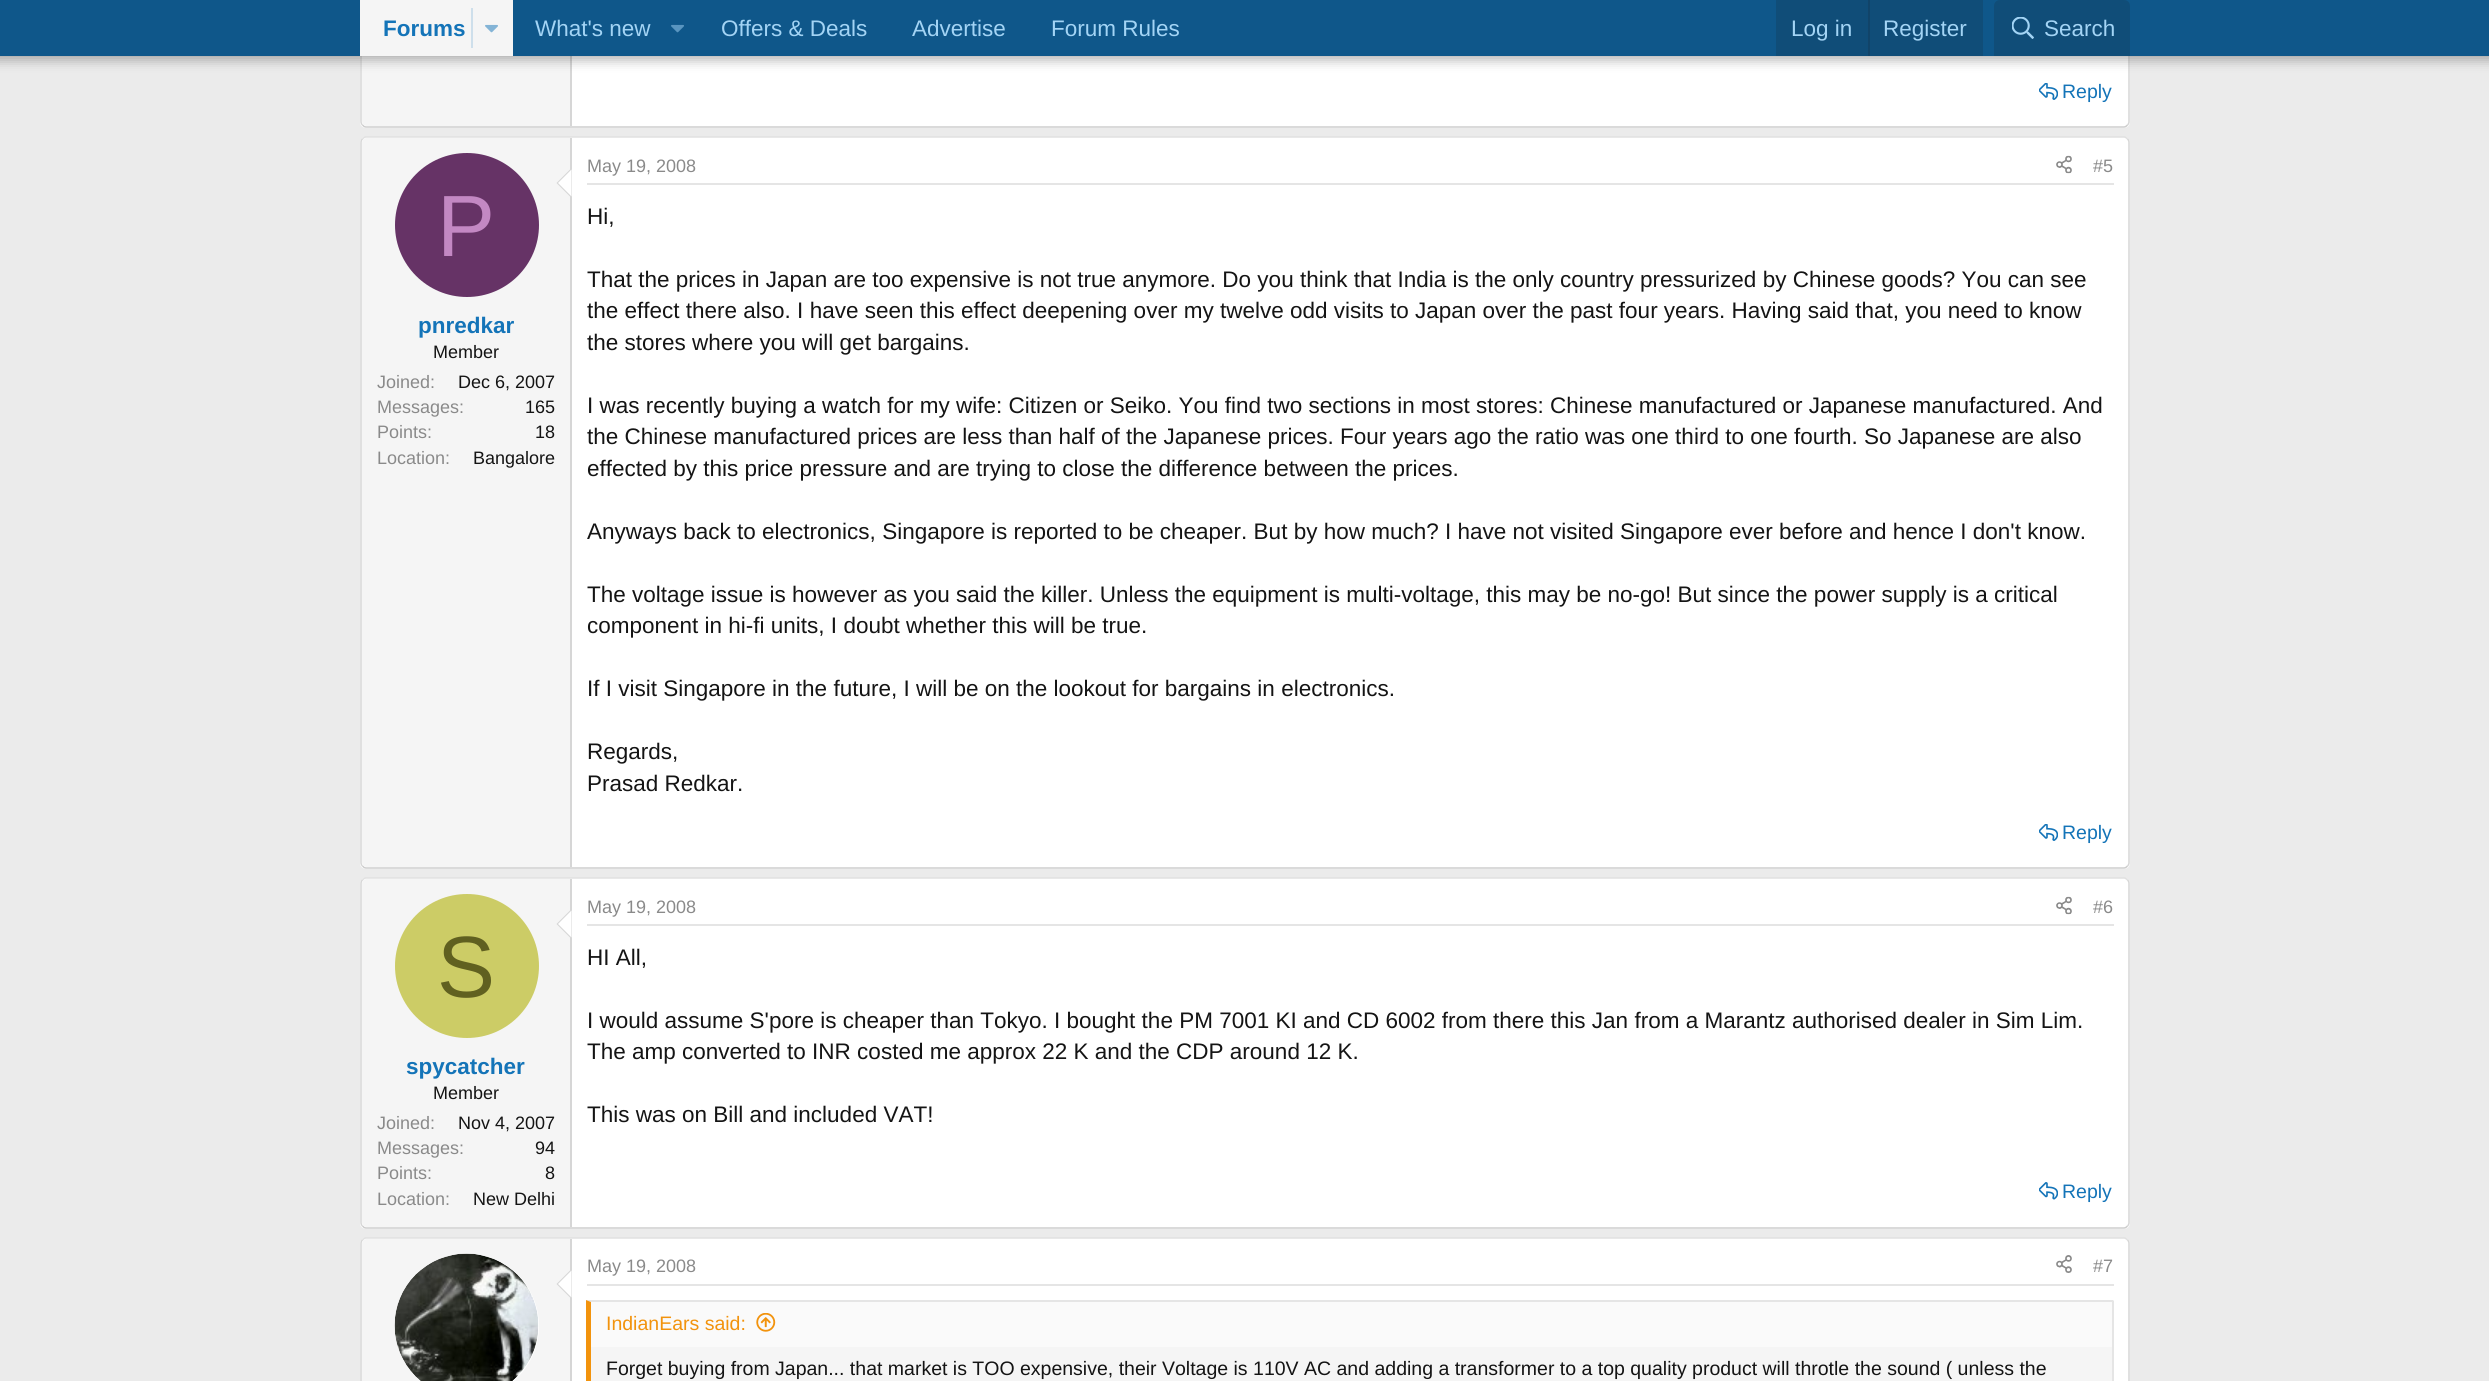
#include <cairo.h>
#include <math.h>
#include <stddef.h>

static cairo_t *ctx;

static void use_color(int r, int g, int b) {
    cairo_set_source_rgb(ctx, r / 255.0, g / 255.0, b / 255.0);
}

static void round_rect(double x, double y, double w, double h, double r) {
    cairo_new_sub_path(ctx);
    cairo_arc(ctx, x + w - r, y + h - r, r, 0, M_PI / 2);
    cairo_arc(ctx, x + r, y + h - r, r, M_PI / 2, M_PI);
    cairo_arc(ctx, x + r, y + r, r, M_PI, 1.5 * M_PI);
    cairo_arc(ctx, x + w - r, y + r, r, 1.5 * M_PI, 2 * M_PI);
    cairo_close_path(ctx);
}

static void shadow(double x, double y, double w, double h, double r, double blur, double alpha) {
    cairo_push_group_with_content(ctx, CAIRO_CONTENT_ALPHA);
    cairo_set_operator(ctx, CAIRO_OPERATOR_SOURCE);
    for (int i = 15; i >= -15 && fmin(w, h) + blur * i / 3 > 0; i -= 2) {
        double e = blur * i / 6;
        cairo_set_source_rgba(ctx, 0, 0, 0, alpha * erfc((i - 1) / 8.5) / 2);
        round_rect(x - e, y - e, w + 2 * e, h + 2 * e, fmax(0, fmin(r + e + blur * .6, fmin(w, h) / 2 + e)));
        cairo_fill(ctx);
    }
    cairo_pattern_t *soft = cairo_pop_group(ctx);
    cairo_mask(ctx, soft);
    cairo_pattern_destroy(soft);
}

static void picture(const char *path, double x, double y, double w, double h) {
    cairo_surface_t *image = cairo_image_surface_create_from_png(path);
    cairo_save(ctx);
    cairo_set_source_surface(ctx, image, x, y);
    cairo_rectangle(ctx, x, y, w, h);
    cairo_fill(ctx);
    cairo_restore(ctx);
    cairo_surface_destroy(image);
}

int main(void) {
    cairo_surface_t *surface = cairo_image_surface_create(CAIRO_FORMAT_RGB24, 2489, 1381);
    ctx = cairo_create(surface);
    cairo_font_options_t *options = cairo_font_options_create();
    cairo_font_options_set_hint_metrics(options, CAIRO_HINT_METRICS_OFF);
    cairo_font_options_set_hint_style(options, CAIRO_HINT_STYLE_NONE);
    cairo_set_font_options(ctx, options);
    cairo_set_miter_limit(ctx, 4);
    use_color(235, 235, 235);
    cairo_paint(ctx);
    use_color(255, 255, 255);
    round_rect(360, -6, 1770, 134, 6);
    cairo_fill(ctx);
    cairo_new_path(ctx);
    cairo_move_to(ctx, 2127.5, -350);
    cairo_curve_to(ctx, 2128.5, -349, 2129, -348, 2129, -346.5);
    cairo_line_to(ctx, 2129, 121.5);
    cairo_curve_to(ctx, 2129, 123, 2128.5, 124, 2127.5, 125);
    use_color(214, 214, 214);
    cairo_set_line_width(ctx, 1.5);
    cairo_stroke(ctx);
    cairo_new_path(ctx);
    cairo_move_to(ctx, 2127.5, 125);
    cairo_curve_to(ctx, 2126.5, 126, 2125.5, 127, 2124, 127);
    cairo_line_to(ctx, 366, 127);
    cairo_curve_to(ctx, 364.5, 127, 363.5, 126, 362.5, 125);
    use_color(204, 204, 204);
    cairo_stroke(ctx);
    cairo_new_path(ctx);
    cairo_move_to(ctx, 362.5, 125);
    cairo_curve_to(ctx, 361.5, 124, 361, 123, 361, 121.5);
    cairo_line_to(ctx, 361, -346.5);
    cairo_curve_to(ctx, 361, -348, 361.5, -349, 362.5, -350);
    use_color(214, 214, 214);
    cairo_stroke(ctx);
    use_color(245, 245, 245);
    cairo_new_path(ctx);
    cairo_move_to(ctx, 367, -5);
    cairo_line_to(ctx, 572, -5);
    cairo_line_to(ctx, 572, 126);
    cairo_line_to(ctx, 367, 126);
    cairo_curve_to(ctx, 364, 126, 362, 124, 362, 121);
    cairo_line_to(ctx, 362, 0);
    cairo_curve_to(ctx, 362, -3, 364, -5, 367, -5);
    cairo_close_path(ctx);
    cairo_fill(ctx);
    use_color(214, 214, 214);
    cairo_rectangle(ctx, 570, 56, 2, 70);
    cairo_fill(ctx);
    use_color(0, 0, 0);
    shadow(-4, -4, 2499, 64, 0, 6, 0.3);
    use_color(15, 87, 138);
    cairo_rectangle(ctx, 0, 0, 2489, 56);
    cairo_fill(ctx);
    use_color(245, 245, 245);
    cairo_rectangle(ctx, 360, 0, 153, 56);
    cairo_fill(ctx);
    cairo_select_font_face(ctx, "Liberation Sans", CAIRO_FONT_SLANT_NORMAL, CAIRO_FONT_WEIGHT_BOLD);
    cairo_set_font_size(ctx, 22.5);
    use_color(20, 116, 184);
    cairo_move_to(ctx, 383, 36);
    cairo_show_text(ctx, "Forums");
    use_color(206, 223, 235);
    cairo_rectangle(ctx, 471, 8, 2, 40);
    cairo_fill(ctx);
    picture("img1.png", 485, 24, 13, 9);
    cairo_select_font_face(ctx, "Liberation Sans", CAIRO_FONT_SLANT_NORMAL, CAIRO_FONT_WEIGHT_NORMAL);
    use_color(163, 212, 245);
    cairo_move_to(ctx, 535, 36);
    cairo_show_text(ctx, "What's new");
    picture("img2.png", 671, 24, 13, 9);
    cairo_move_to(ctx, 721, 36);
    cairo_show_text(ctx, "Offers & Deals");
    cairo_move_to(ctx, 912, 36);
    cairo_show_text(ctx, "Advertise");
    cairo_move_to(ctx, 1051, 36);
    cairo_show_text(ctx, "Forum Rules");
    use_color(16, 77, 120);
    cairo_rectangle(ctx, 1776, 0, 207, 56);
    cairo_fill(ctx);
    use_color(163, 212, 245);
    cairo_move_to(ctx, 1791, 36);
    cairo_show_text(ctx, "Log in");
    use_color(17, 68, 105);
    cairo_rectangle(ctx, 1868, 0, 2, 56);
    cairo_fill(ctx);
    use_color(163, 212, 245);
    cairo_move_to(ctx, 1883, 36);
    cairo_show_text(ctx, "Register");
    use_color(16, 77, 120);
    cairo_new_path(ctx);
    cairo_move_to(ctx, 2000, 0);
    cairo_line_to(ctx, 2124, 0);
    cairo_curve_to(ctx, 2127.5, 0, 2130, 2.5, 2130, 6);
    cairo_line_to(ctx, 2130, 56);
    cairo_line_to(ctx, 1994, 56);
    cairo_line_to(ctx, 1994, 6);
    cairo_curve_to(ctx, 1994, 2.5, 1996.5, 0, 2000, 0);
    cairo_close_path(ctx);
    cairo_fill(ctx);
    picture("img3.png", 2012, 17, 22, 22);
    use_color(163, 212, 245);
    cairo_move_to(ctx, 2044, 36);
    cairo_show_text(ctx, "Search");
    picture("img4.png", 2039, 83, 19, 17);
    cairo_set_font_size(ctx, 19.5);
    use_color(20, 116, 184);
    cairo_move_to(ctx, 2062, 98);
    cairo_show_text(ctx, "Reply");
    use_color(255, 255, 255);
    round_rect(360, 137, 1770, 732, 6);
    cairo_fill(ctx);
    cairo_new_path(ctx);
    cairo_move_to(ctx, 362.5, 139);
    cairo_curve_to(ctx, 363.5, 138, 364.5, 137, 366, 137);
    cairo_line_to(ctx, 2124, 137);
    cairo_curve_to(ctx, 2125.5, 137, 2126.5, 138, 2127.5, 139);
    use_color(224, 224, 224);
    cairo_stroke(ctx);
    cairo_new_path(ctx);
    cairo_move_to(ctx, 2127.5, 139);
    cairo_curve_to(ctx, 2128.5, 140, 2129, 141, 2129, 142.5);
    cairo_line_to(ctx, 2129, 862.5);
    cairo_curve_to(ctx, 2129, 864, 2128.5, 865, 2127.5, 866);
    use_color(214, 214, 214);
    cairo_stroke(ctx);
    cairo_new_path(ctx);
    cairo_move_to(ctx, 2127.5, 866);
    cairo_curve_to(ctx, 2126.5, 867, 2125.5, 868, 2124, 868);
    cairo_line_to(ctx, 366, 868);
    cairo_curve_to(ctx, 364.5, 868, 363.5, 867, 362.5, 866);
    use_color(204, 204, 204);
    cairo_stroke(ctx);
    cairo_new_path(ctx);
    cairo_move_to(ctx, 362.5, 866);
    cairo_curve_to(ctx, 361.5, 865, 361, 864, 361, 862.5);
    cairo_line_to(ctx, 361, 142.5);
    cairo_curve_to(ctx, 361, 141, 361.5, 140, 362.5, 139);
    use_color(214, 214, 214);
    cairo_stroke(ctx);
    use_color(245, 245, 245);
    cairo_new_path(ctx);
    cairo_move_to(ctx, 367, 138);
    cairo_line_to(ctx, 572, 138);
    cairo_line_to(ctx, 572, 867);
    cairo_line_to(ctx, 367, 867);
    cairo_curve_to(ctx, 364, 867, 362, 865, 362, 862);
    cairo_line_to(ctx, 362, 143);
    cairo_curve_to(ctx, 362, 140, 364, 138, 367, 138);
    cairo_close_path(ctx);
    cairo_fill(ctx);
    use_color(214, 214, 214);
    cairo_rectangle(ctx, 570, 138, 2, 729);
    cairo_fill(ctx);
    cairo_new_path(ctx);
    cairo_move_to(ctx, 571.5, 168);
    cairo_line_to(ctx, 571.5, 198);
    cairo_line_to(ctx, 556.5, 183);
    cairo_close_path(ctx);
    cairo_fill(ctx);
    use_color(255, 255, 255);
    cairo_new_path(ctx);
    cairo_move_to(ctx, 571.5, 169.5);
    cairo_line_to(ctx, 571.5, 196.5);
    cairo_line_to(ctx, 558, 183);
    cairo_close_path(ctx);
    cairo_fill(ctx);
    use_color(102, 51, 102);
    cairo_arc(ctx, 467, 225, 72, 0, 2 * M_PI);
    cairo_fill(ctx);
    cairo_set_font_size(ctx, 87);
    use_color(195, 136, 195);
    cairo_move_to(ctx, 437, 256);
    cairo_show_text(ctx, "P");
    cairo_select_font_face(ctx, "Liberation Sans", CAIRO_FONT_SLANT_NORMAL, CAIRO_FONT_WEIGHT_BOLD);
    cairo_set_font_size(ctx, 22.5);
    use_color(20, 116, 184);
    cairo_move_to(ctx, 418, 333);
    cairo_show_text(ctx, "pnredkar");
    cairo_select_font_face(ctx, "Liberation Sans", CAIRO_FONT_SLANT_NORMAL, CAIRO_FONT_WEIGHT_NORMAL);
    cairo_set_font_size(ctx, 18);
    use_color(20, 20, 20);
    cairo_move_to(ctx, 433, 358);
    cairo_show_text(ctx, "Member");
    use_color(138, 138, 138);
    cairo_move_to(ctx, 377, 388);
    cairo_show_text(ctx, "Joined:");
    use_color(20, 20, 20);
    cairo_move_to(ctx, 458, 388);
    cairo_show_text(ctx, "Dec 6, 2007");
    use_color(138, 138, 138);
    cairo_move_to(ctx, 377, 413);
    cairo_show_text(ctx, "Messages:");
    use_color(20, 20, 20);
    cairo_move_to(ctx, 525, 413);
    cairo_show_text(ctx, "165");
    use_color(138, 138, 138);
    cairo_move_to(ctx, 377, 438);
    cairo_show_text(ctx, "Points:");
    use_color(20, 20, 20);
    cairo_move_to(ctx, 535, 438);
    cairo_show_text(ctx, "18");
    use_color(138, 138, 138);
    cairo_move_to(ctx, 377, 464);
    cairo_show_text(ctx, "Location:");
    use_color(20, 20, 20);
    cairo_move_to(ctx, 473, 464);
    cairo_show_text(ctx, "Bangalore");
    use_color(229, 229, 229);
    cairo_rectangle(ctx, 587, 183, 1527, 2);
    cairo_fill(ctx);
    use_color(138, 138, 138);
    cairo_move_to(ctx, 587, 172);
    cairo_show_text(ctx, "May 19, 2008");
    picture("img5.png", 2056, 155, 16, 19);
    cairo_move_to(ctx, 2093, 172);
    cairo_show_text(ctx, "#5");
    cairo_set_font_size(ctx, 22.5);
    use_color(20, 20, 20);
    cairo_move_to(ctx, 587, 224);
    cairo_show_text(ctx, "Hi,");
    cairo_move_to(ctx, 587, 287);
    cairo_show_text(ctx, "That the prices in Japan are too expensive is not true anymore. Do you think that India is the only country pressurized by Chinese goods? You can see");
    cairo_move_to(ctx, 587, 318);
    cairo_show_text(ctx, "the effect there also. I have seen this effect deepening over my twelve odd visits to Japan over the past four years. Having said that, you need to know");
    cairo_move_to(ctx, 587, 350);
    cairo_show_text(ctx, "the stores where you will get bargains.");
    cairo_move_to(ctx, 587, 413);
    cairo_show_text(ctx, "I was recently buying a watch for my wife: Citizen or Seiko. You find two sections in most stores: Chinese manufactured or Japanese manufactured. And");
    cairo_move_to(ctx, 587, 444);
    cairo_show_text(ctx, "the Chinese manufactured prices are less than half of the Japanese prices. Four years ago the ratio was one third to one fourth. So Japanese are also");
    cairo_move_to(ctx, 587, 476);
    cairo_show_text(ctx, "effected by this price pressure and are trying to close the difference between the prices.");
    cairo_move_to(ctx, 587, 539);
    cairo_show_text(ctx, "Anyways back to electronics, Singapore is reported to be cheaper. But by how much? I have not visited Singapore ever before and hence I don't know.");
    cairo_move_to(ctx, 587, 602);
    cairo_show_text(ctx, "The voltage issue is however as you said the killer. Unless the equipment is multi-voltage, this may be no-go! But since the power supply is a critical");
    cairo_move_to(ctx, 587, 633);
    cairo_show_text(ctx, "component in hi-fi units, I doubt whether this will be true.");
    cairo_move_to(ctx, 587, 696);
    cairo_show_text(ctx, "If I visit Singapore in the future, I will be on the lookout for bargains in electronics.");
    cairo_move_to(ctx, 587, 759);
    cairo_show_text(ctx, "Regards,");
    cairo_move_to(ctx, 587, 791);
    cairo_show_text(ctx, "Prasad Redkar.");
    picture("img4.png", 2039, 824, 19, 17);
    cairo_set_font_size(ctx, 19.5);
    use_color(20, 116, 184);
    cairo_move_to(ctx, 2062, 839);
    cairo_show_text(ctx, "Reply");
    use_color(255, 255, 255);
    round_rect(360, 878, 1770, 351, 6);
    cairo_fill(ctx);
    cairo_new_path(ctx);
    cairo_move_to(ctx, 362.5, 880);
    cairo_curve_to(ctx, 363.5, 879, 364.5, 878, 366, 878);
    cairo_line_to(ctx, 2124, 878);
    cairo_curve_to(ctx, 2125.5, 878, 2126.5, 879, 2127.5, 880);
    use_color(224, 224, 224);
    cairo_stroke(ctx);
    cairo_new_path(ctx);
    cairo_move_to(ctx, 2127.5, 880);
    cairo_curve_to(ctx, 2128.5, 881, 2129, 882, 2129, 883.5);
    cairo_line_to(ctx, 2129, 1222.5);
    cairo_curve_to(ctx, 2129, 1224, 2128.5, 1225, 2127.5, 1226);
    use_color(214, 214, 214);
    cairo_stroke(ctx);
    cairo_new_path(ctx);
    cairo_move_to(ctx, 2127.5, 1226);
    cairo_curve_to(ctx, 2126.5, 1227, 2125.5, 1228, 2124, 1228);
    cairo_line_to(ctx, 366, 1228);
    cairo_curve_to(ctx, 364.5, 1228, 363.5, 1227, 362.5, 1226);
    use_color(204, 204, 204);
    cairo_stroke(ctx);
    cairo_new_path(ctx);
    cairo_move_to(ctx, 362.5, 1226);
    cairo_curve_to(ctx, 361.5, 1225, 361, 1224, 361, 1222.5);
    cairo_line_to(ctx, 361, 883.5);
    cairo_curve_to(ctx, 361, 882, 361.5, 881, 362.5, 880);
    use_color(214, 214, 214);
    cairo_stroke(ctx);
    use_color(245, 245, 245);
    cairo_new_path(ctx);
    cairo_move_to(ctx, 367, 879);
    cairo_line_to(ctx, 572, 879);
    cairo_line_to(ctx, 572, 1227);
    cairo_line_to(ctx, 367, 1227);
    cairo_curve_to(ctx, 364, 1227, 362, 1225, 362, 1222);
    cairo_line_to(ctx, 362, 884);
    cairo_curve_to(ctx, 362, 881, 364, 879, 367, 879);
    cairo_close_path(ctx);
    cairo_fill(ctx);
    use_color(214, 214, 214);
    cairo_rectangle(ctx, 570, 879, 2, 348);
    cairo_fill(ctx);
    cairo_new_path(ctx);
    cairo_move_to(ctx, 571.5, 909);
    cairo_line_to(ctx, 571.5, 939);
    cairo_line_to(ctx, 556.5, 924);
    cairo_close_path(ctx);
    cairo_fill(ctx);
    use_color(255, 255, 255);
    cairo_new_path(ctx);
    cairo_move_to(ctx, 571.5, 910.5);
    cairo_line_to(ctx, 571.5, 937.5);
    cairo_line_to(ctx, 558, 924);
    cairo_close_path(ctx);
    cairo_fill(ctx);
    use_color(204, 204, 102);
    cairo_arc(ctx, 467, 966, 72, 0, 2 * M_PI);
    cairo_fill(ctx);
    cairo_set_font_size(ctx, 87);
    use_color(96, 96, 32);
    cairo_move_to(ctx, 437, 997);
    cairo_show_text(ctx, "S");
    cairo_select_font_face(ctx, "Liberation Sans", CAIRO_FONT_SLANT_NORMAL, CAIRO_FONT_WEIGHT_BOLD);
    cairo_set_font_size(ctx, 22.5);
    use_color(20, 116, 184);
    cairo_move_to(ctx, 406, 1074);
    cairo_show_text(ctx, "spycatcher");
    cairo_select_font_face(ctx, "Liberation Sans", CAIRO_FONT_SLANT_NORMAL, CAIRO_FONT_WEIGHT_NORMAL);
    cairo_set_font_size(ctx, 18);
    use_color(20, 20, 20);
    cairo_move_to(ctx, 433, 1099);
    cairo_show_text(ctx, "Member");
    use_color(138, 138, 138);
    cairo_move_to(ctx, 377, 1129);
    cairo_show_text(ctx, "Joined:");
    use_color(20, 20, 20);
    cairo_move_to(ctx, 458, 1129);
    cairo_show_text(ctx, "Nov 4, 2007");
    use_color(138, 138, 138);
    cairo_move_to(ctx, 377, 1154);
    cairo_show_text(ctx, "Messages:");
    use_color(20, 20, 20);
    cairo_move_to(ctx, 535, 1154);
    cairo_show_text(ctx, "94");
    use_color(138, 138, 138);
    cairo_move_to(ctx, 377, 1179);
    cairo_show_text(ctx, "Points:");
    use_color(20, 20, 20);
    cairo_move_to(ctx, 545, 1179);
    cairo_show_text(ctx, "8");
    use_color(138, 138, 138);
    cairo_move_to(ctx, 377, 1205);
    cairo_show_text(ctx, "Location:");
    use_color(20, 20, 20);
    cairo_move_to(ctx, 473, 1205);
    cairo_show_text(ctx, "New Delhi");
    use_color(229, 229, 229);
    cairo_rectangle(ctx, 587, 924, 1527, 2);
    cairo_fill(ctx);
    use_color(138, 138, 138);
    cairo_move_to(ctx, 587, 913);
    cairo_show_text(ctx, "May 19, 2008");
    picture("img5.png", 2056, 896, 16, 19);
    cairo_move_to(ctx, 2093, 913);
    cairo_show_text(ctx, "#6");
    cairo_set_font_size(ctx, 22.5);
    use_color(20, 20, 20);
    cairo_move_to(ctx, 587, 965);
    cairo_show_text(ctx, "HI All,");
    cairo_move_to(ctx, 587, 1028);
    cairo_show_text(ctx, "I would assume S'pore is cheaper than Tokyo. I bought the PM 7001 KI and CD 6002 from there this Jan from a Marantz authorised dealer in Sim Lim.");
    cairo_move_to(ctx, 587, 1059);
    cairo_show_text(ctx, "The amp converted to INR costed me approx 22 K and the CDP around 12 K.");
    cairo_move_to(ctx, 587, 1122);
    cairo_show_text(ctx, "This was on Bill and included VAT!");
    picture("img6.png", 2039, 1182, 19, 18);
    cairo_set_font_size(ctx, 19.5);
    use_color(20, 116, 184);
    cairo_move_to(ctx, 2062, 1198);
    cairo_show_text(ctx, "Reply");
    use_color(255, 255, 255);
    round_rect(360, 1238, 1770, 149, 6);
    cairo_fill(ctx);
    cairo_new_path(ctx);
    cairo_move_to(ctx, 362.5, 1240);
    cairo_curve_to(ctx, 363.5, 1239, 364.5, 1238, 366, 1238);
    cairo_line_to(ctx, 2124, 1238);
    cairo_curve_to(ctx, 2125.5, 1238, 2126.5, 1239, 2127.5, 1240);
    use_color(224, 224, 224);
    cairo_stroke(ctx);
    cairo_new_path(ctx);
    cairo_move_to(ctx, 2127.5, 1240);
    cairo_curve_to(ctx, 2128.5, 1241, 2129, 1242, 2129, 1243.5);
    cairo_line_to(ctx, 2129, 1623);
    cairo_curve_to(ctx, 2129, 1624.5, 2128.5, 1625.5, 2127.5, 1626.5);
    use_color(214, 214, 214);
    cairo_stroke(ctx);
    cairo_new_path(ctx);
    cairo_move_to(ctx, 362.5, 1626.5);
    cairo_curve_to(ctx, 361.5, 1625.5, 361, 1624.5, 361, 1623);
    cairo_line_to(ctx, 361, 1243.5);
    cairo_curve_to(ctx, 361, 1242, 361.5, 1241, 362.5, 1240);
    cairo_stroke(ctx);
    use_color(245, 245, 245);
    cairo_new_path(ctx);
    cairo_move_to(ctx, 367, 1239);
    cairo_line_to(ctx, 572, 1239);
    cairo_line_to(ctx, 572, 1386);
    cairo_line_to(ctx, 367, 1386);
    cairo_curve_to(ctx, 364, 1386, 362, 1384, 362, 1381);
    cairo_line_to(ctx, 362, 1244);
    cairo_curve_to(ctx, 362, 1241, 364, 1239, 367, 1239);
    cairo_close_path(ctx);
    cairo_fill(ctx);
    use_color(214, 214, 214);
    cairo_rectangle(ctx, 570, 1239, 2, 142);
    cairo_fill(ctx);
    use_color(255, 255, 255);
    cairo_arc(ctx, 467, 1326, 72, 0, 2 * M_PI);
    cairo_fill(ctx);
    picture("img7.png", 394, 1253, 145, 128);
    use_color(214, 214, 214);
    cairo_new_path(ctx);
    cairo_move_to(ctx, 571.5, 1269);
    cairo_line_to(ctx, 571.5, 1299);
    cairo_line_to(ctx, 556.5, 1284);
    cairo_close_path(ctx);
    cairo_fill(ctx);
    use_color(255, 255, 255);
    cairo_new_path(ctx);
    cairo_move_to(ctx, 571.5, 1270.5);
    cairo_line_to(ctx, 571.5, 1297.5);
    cairo_line_to(ctx, 558, 1284);
    cairo_close_path(ctx);
    cairo_fill(ctx);
    use_color(229, 229, 229);
    cairo_rectangle(ctx, 587, 1284, 1527, 2);
    cairo_fill(ctx);
    cairo_set_font_size(ctx, 18);
    use_color(138, 138, 138);
    cairo_move_to(ctx, 587, 1272);
    cairo_show_text(ctx, "May 19, 2008");
    picture("img8.png", 2056, 1255, 16, 18);
    cairo_move_to(ctx, 2093, 1272);
    cairo_show_text(ctx, "#7");
    use_color(245, 245, 245);
    cairo_rectangle(ctx, 591, 1347, 1521, 34);
    cairo_fill(ctx);
    use_color(229, 229, 229);
    cairo_new_path(ctx);
    cairo_move_to(ctx, 586, 1300);
    cairo_line_to(ctx, 2114, 1300);
    cairo_line_to(ctx, 2112, 1302);
    cairo_line_to(ctx, 591, 1302);
    cairo_close_path(ctx);
    cairo_fill(ctx);
    cairo_rectangle(ctx, 2112, 1301, 2, 80);
    cairo_fill(ctx);
    use_color(242, 147, 13);
    cairo_new_path(ctx);
    cairo_move_to(ctx, 586, 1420);
    cairo_line_to(ctx, 586, 1300);
    cairo_line_to(ctx, 591, 1302);
    cairo_line_to(ctx, 591, 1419);
    cairo_close_path(ctx);
    cairo_fill(ctx);
    use_color(250, 250, 250);
    cairo_rectangle(ctx, 591, 1302, 1521, 45);
    cairo_fill(ctx);
    cairo_set_font_size(ctx, 19.5);
    use_color(242, 147, 13);
    cairo_move_to(ctx, 606, 1330);
    cairo_show_text(ctx, "IndianEars said:");
    picture("img9.png", 756, 1313, 20, 19);
    use_color(20, 20, 20);
    cairo_move_to(ctx, 606, 1375);
    cairo_show_text(ctx, "Forget buying from Japan... that market is TOO expensive, their Voltage is 110V AC and adding a transformer to a top quality product will throtle the sound ( unless the");
    cairo_surface_write_to_png(surface, "result.png");
    cairo_font_options_destroy(options);
    cairo_destroy(ctx);
    cairo_surface_destroy(surface);
    return 0;
}
